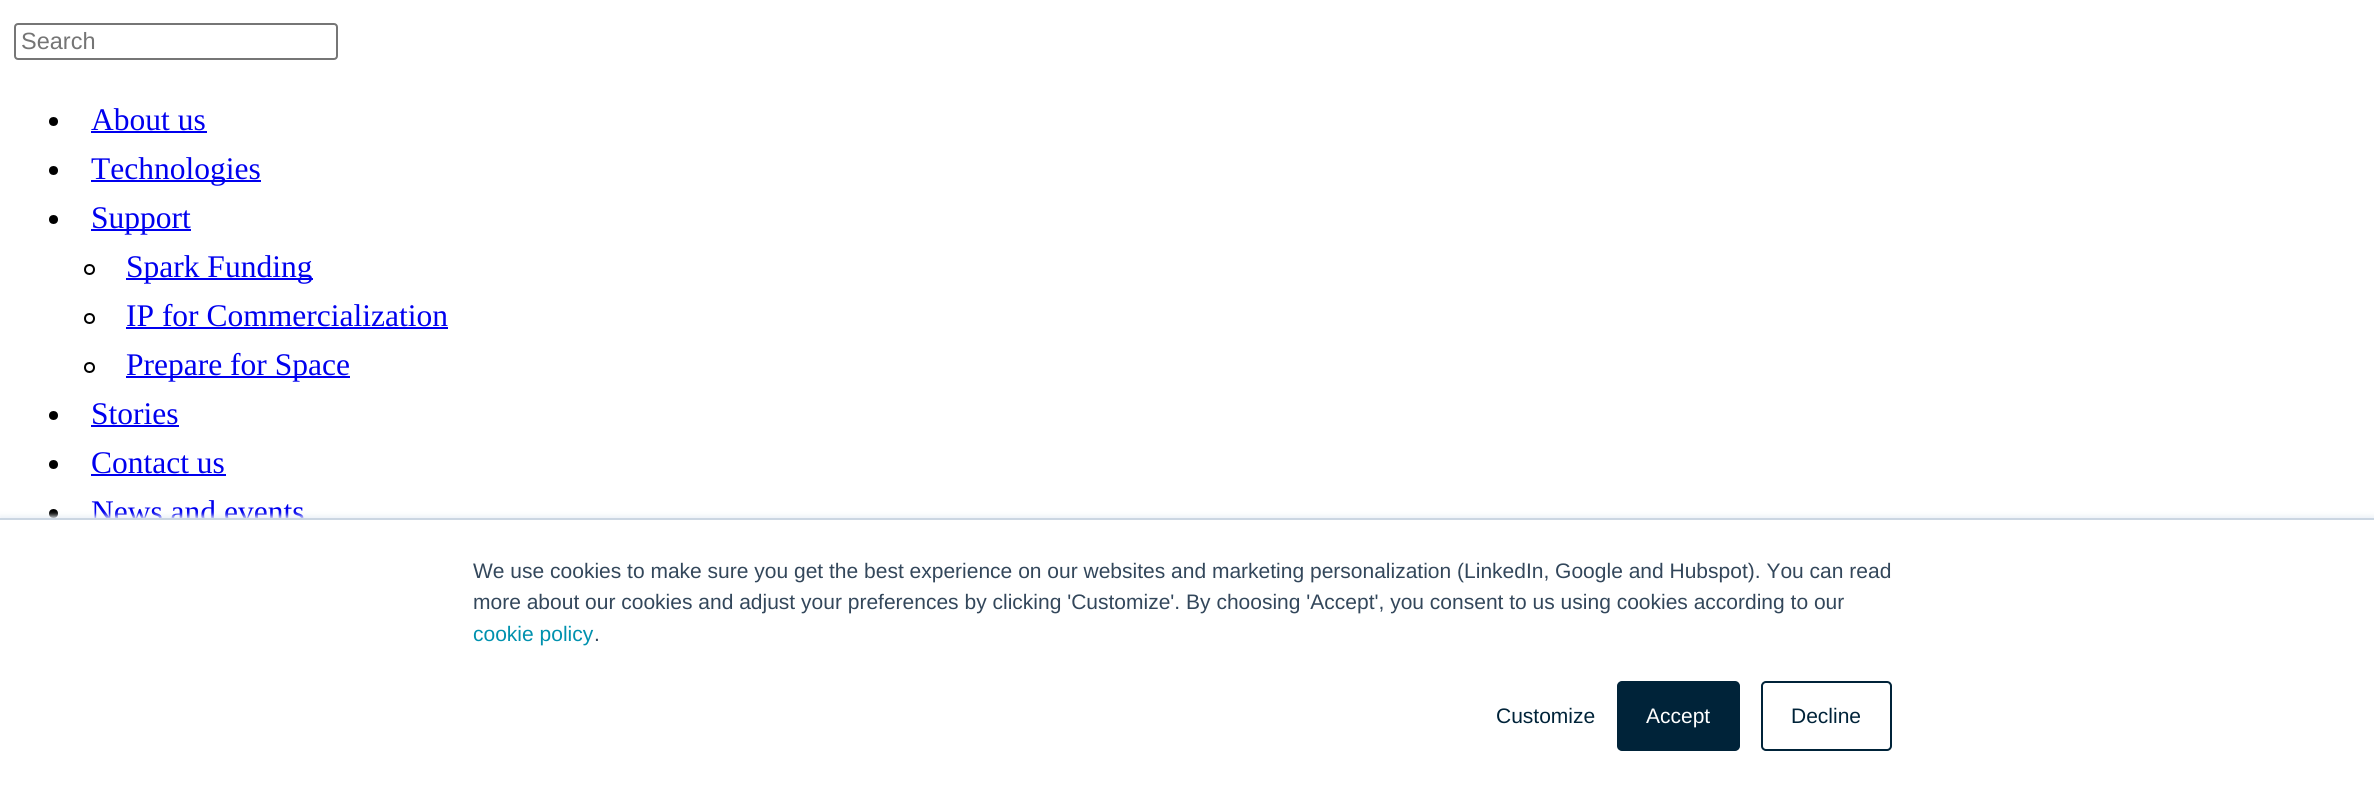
#include <cairo.h>
#include <math.h>
#include <stddef.h>

static cairo_t *ctx;

static void use_color(int r, int g, int b) {
    cairo_set_source_rgb(ctx, r / 255.0, g / 255.0, b / 255.0);
}

static void round_rect(double x, double y, double w, double h, double r) {
    cairo_new_sub_path(ctx);
    cairo_arc(ctx, x + w - r, y + h - r, r, 0, M_PI / 2);
    cairo_arc(ctx, x + r, y + h - r, r, M_PI / 2, M_PI);
    cairo_arc(ctx, x + r, y + r, r, M_PI, 1.5 * M_PI);
    cairo_arc(ctx, x + w - r, y + r, r, 1.5 * M_PI, 2 * M_PI);
    cairo_close_path(ctx);
}

static void shadow(double x, double y, double w, double h, double r, double blur, double alpha) {
    cairo_push_group_with_content(ctx, CAIRO_CONTENT_ALPHA);
    cairo_set_operator(ctx, CAIRO_OPERATOR_SOURCE);
    for (int i = 15; i >= -15 && fmin(w, h) + blur * i / 3 > 0; i -= 2) {
        double e = blur * i / 6;
        cairo_set_source_rgba(ctx, 0, 0, 0, alpha * erfc((i - 1) / 8.5) / 2);
        round_rect(x - e, y - e, w + 2 * e, h + 2 * e, fmax(0, fmin(r + e + blur * .6, fmin(w, h) / 2 + e)));
        cairo_fill(ctx);
    }
    cairo_pattern_t *soft = cairo_pop_group(ctx);
    cairo_mask(ctx, soft);
    cairo_pattern_destroy(soft);
}

int main(void) {
    cairo_surface_t *surface = cairo_image_surface_create(CAIRO_FORMAT_RGB24, 2374, 795);
    ctx = cairo_create(surface);
    cairo_font_options_t *options = cairo_font_options_create();
    cairo_font_options_set_hint_metrics(options, CAIRO_HINT_METRICS_OFF);
    cairo_font_options_set_hint_style(options, CAIRO_HINT_STYLE_NONE);
    cairo_set_font_options(ctx, options);
    cairo_set_miter_limit(ctx, 4);
    use_color(255, 255, 255);
    cairo_paint(ctx);
    round_rect(15, 24, 322, 35, 3);
    use_color(118, 118, 118);
    cairo_stroke(ctx);
    cairo_select_font_face(ctx, "Liberation Sans", CAIRO_FONT_SLANT_NORMAL, CAIRO_FONT_WEIGHT_NORMAL);
    cairo_set_font_size(ctx, 23.5);
    use_color(117, 117, 117);
    cairo_move_to(ctx, 21, 49);
    cairo_show_text(ctx, "Search");
    use_color(0, 0, 0);
    cairo_new_path(ctx);
    cairo_arc(ctx, 53.5, 121.5, 4.5, 0, 2 * M_PI);
    cairo_fill(ctx);
    cairo_select_font_face(ctx, "Liberation Serif", CAIRO_FONT_SLANT_NORMAL, CAIRO_FONT_WEIGHT_NORMAL);
    cairo_set_font_size(ctx, 31.5);
    use_color(0, 0, 238);
    cairo_move_to(ctx, 91, 130);
    cairo_show_text(ctx, "About us");
    cairo_rectangle(ctx, 91, 131, 116, 2);
    cairo_fill(ctx);
    use_color(0, 0, 0);
    cairo_arc(ctx, 53.5, 170.5, 4.5, 0, 2 * M_PI);
    cairo_fill(ctx);
    use_color(0, 0, 238);
    cairo_rectangle(ctx, 91, 180, 170, 2);
    cairo_fill(ctx);
    cairo_move_to(ctx, 91, 179);
    cairo_show_text(ctx, "Technologies");
    use_color(0, 0, 0);
    cairo_new_path(ctx);
    cairo_arc(ctx, 53.5, 219.5, 4.5, 0, 2 * M_PI);
    cairo_fill(ctx);
    use_color(0, 0, 238);
    cairo_rectangle(ctx, 91, 229, 100, 2);
    cairo_fill(ctx);
    cairo_move_to(ctx, 91, 228);
    cairo_show_text(ctx, "Support");
    cairo_new_path(ctx);
    cairo_arc(ctx, 89.5, 269.5, 4.5, 0, 2 * M_PI);
    use_color(0, 0, 0);
    cairo_stroke(ctx);
    use_color(0, 0, 238);
    cairo_rectangle(ctx, 126, 278, 187, 2);
    cairo_fill(ctx);
    cairo_move_to(ctx, 126, 277);
    cairo_show_text(ctx, "Spark Funding");
    cairo_new_path(ctx);
    cairo_arc(ctx, 89.5, 318.5, 4.5, 0, 2 * M_PI);
    use_color(0, 0, 0);
    cairo_stroke(ctx);
    use_color(0, 0, 238);
    cairo_move_to(ctx, 126, 326);
    cairo_show_text(ctx, "IP for Commercialization");
    cairo_rectangle(ctx, 126, 327, 322, 2);
    cairo_fill(ctx);
    cairo_arc(ctx, 89.5, 367.5, 4.5, 0, 2 * M_PI);
    use_color(0, 0, 0);
    cairo_stroke(ctx);
    use_color(0, 0, 238);
    cairo_rectangle(ctx, 126, 376, 224, 2);
    cairo_fill(ctx);
    cairo_move_to(ctx, 126, 375);
    cairo_show_text(ctx, "Prepare for Space");
    use_color(0, 0, 0);
    cairo_new_path(ctx);
    cairo_arc(ctx, 53.5, 415.5, 4.5, 0, 2 * M_PI);
    cairo_fill(ctx);
    use_color(0, 0, 238);
    cairo_move_to(ctx, 91, 424);
    cairo_show_text(ctx, "Stories");
    cairo_rectangle(ctx, 91, 425, 88, 2);
    cairo_fill(ctx);
    use_color(0, 0, 0);
    cairo_arc(ctx, 53.5, 464.5, 4.5, 0, 2 * M_PI);
    cairo_fill(ctx);
    use_color(0, 0, 238);
    cairo_move_to(ctx, 91, 473);
    cairo_show_text(ctx, "Contact us");
    cairo_rectangle(ctx, 91, 474, 135, 2);
    cairo_fill(ctx);
    use_color(0, 0, 0);
    cairo_arc(ctx, 53.5, 513.5, 4.5, 0, 2 * M_PI);
    cairo_fill(ctx);
    use_color(0, 0, 238);
    cairo_move_to(ctx, 91, 522);
    cairo_show_text(ctx, "News and events");
    use_color(234, 240, 246);
    shadow(0, 516, 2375, 279, 0, 2.5, 1);
    use_color(255, 255, 255);
    cairo_rectangle(ctx, 0, 520, 2374, 275);
    cairo_fill(ctx);
    use_color(203, 214, 226);
    cairo_rectangle(ctx, 0, 518, 2374, 2);
    cairo_fill(ctx);
    cairo_select_font_face(ctx, "Liberation Sans", CAIRO_FONT_SLANT_NORMAL, CAIRO_FONT_WEIGHT_NORMAL);
    cairo_set_font_size(ctx, 21);
    use_color(51, 71, 91);
    cairo_move_to(ctx, 473, 578);
    cairo_show_text(ctx, "We use cookies to make sure you get the best experience on our websites and marketing personalization (LinkedIn, Google and Hubspot). You can read");
    cairo_move_to(ctx, 473, 609);
    cairo_show_text(ctx, "more about our cookies and adjust your preferences by clicking 'Customize'. By choosing 'Accept', you consent to us using cookies according to our");
    use_color(0, 145, 174);
    cairo_move_to(ctx, 473, 641);
    cairo_show_text(ctx, "cookie policy");
    use_color(51, 71, 91);
    cairo_move_to(ctx, 594, 641);
    cairo_show_text(ctx, ".");
    use_color(0, 35, 57);
    cairo_move_to(ctx, 1496, 723);
    cairo_show_text(ctx, "Customize");
    round_rect(1618, 682, 121, 68, 4);
    cairo_fill_preserve(ctx);
    cairo_stroke(ctx);
    use_color(255, 255, 255);
    cairo_move_to(ctx, 1646, 723);
    cairo_show_text(ctx, "Accept");
    round_rect(1762, 682, 129, 68, 4);
    use_color(0, 35, 57);
    cairo_stroke(ctx);
    cairo_move_to(ctx, 1791, 723);
    cairo_show_text(ctx, "Decline");
    cairo_surface_write_to_png(surface, "result.png");
    cairo_font_options_destroy(options);
    cairo_destroy(ctx);
    cairo_surface_destroy(surface);
    return 0;
}
